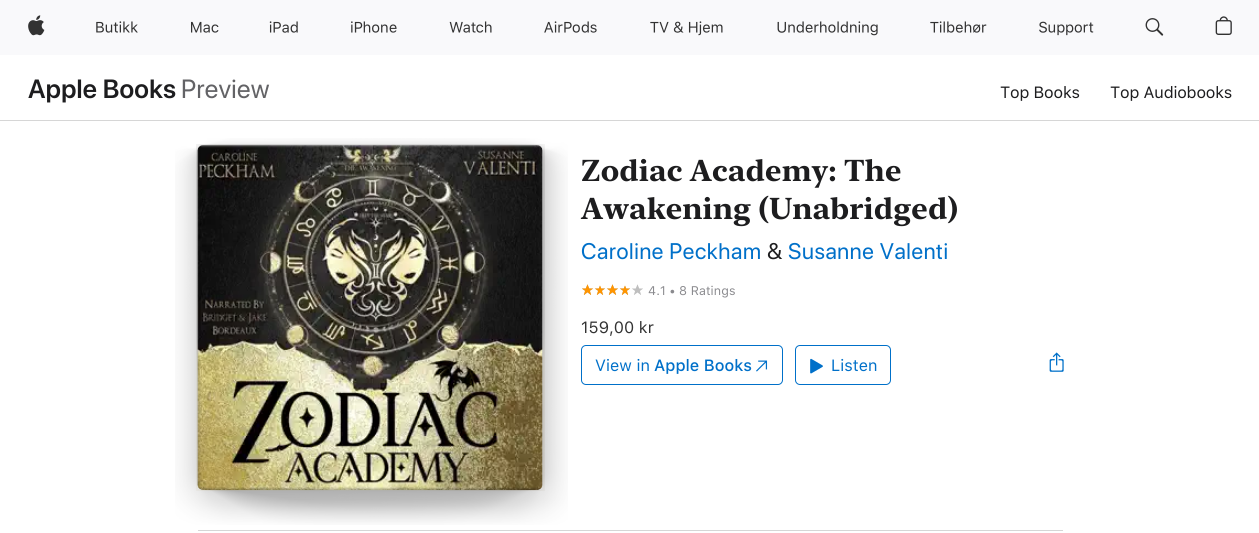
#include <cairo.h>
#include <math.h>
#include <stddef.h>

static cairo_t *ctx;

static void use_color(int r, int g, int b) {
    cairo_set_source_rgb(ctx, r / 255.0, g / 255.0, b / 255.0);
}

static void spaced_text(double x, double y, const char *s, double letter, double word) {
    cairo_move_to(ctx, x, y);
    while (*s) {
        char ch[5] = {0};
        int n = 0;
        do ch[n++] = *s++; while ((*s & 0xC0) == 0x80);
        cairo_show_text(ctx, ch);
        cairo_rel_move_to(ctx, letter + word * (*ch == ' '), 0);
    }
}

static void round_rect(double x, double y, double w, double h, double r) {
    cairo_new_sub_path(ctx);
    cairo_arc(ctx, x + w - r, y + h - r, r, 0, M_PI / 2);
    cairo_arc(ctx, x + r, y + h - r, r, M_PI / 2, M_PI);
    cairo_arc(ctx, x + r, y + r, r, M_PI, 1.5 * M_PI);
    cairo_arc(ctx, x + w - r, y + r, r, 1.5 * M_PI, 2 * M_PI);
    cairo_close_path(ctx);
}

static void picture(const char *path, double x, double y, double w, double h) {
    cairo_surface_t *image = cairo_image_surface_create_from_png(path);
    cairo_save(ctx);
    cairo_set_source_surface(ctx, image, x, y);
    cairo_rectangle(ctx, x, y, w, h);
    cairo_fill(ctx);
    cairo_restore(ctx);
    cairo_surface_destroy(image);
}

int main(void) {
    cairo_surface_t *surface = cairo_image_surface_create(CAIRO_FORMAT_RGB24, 1259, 533);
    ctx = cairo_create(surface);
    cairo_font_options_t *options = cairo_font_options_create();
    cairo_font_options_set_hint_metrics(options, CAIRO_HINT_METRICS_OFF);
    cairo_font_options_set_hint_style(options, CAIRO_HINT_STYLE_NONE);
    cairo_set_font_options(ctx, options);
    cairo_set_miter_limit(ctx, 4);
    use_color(255, 255, 255);
    cairo_paint(ctx);
    use_color(249, 249, 251);
    cairo_rectangle(ctx, 0, 0, 1259, 55);
    cairo_fill(ctx);
    picture("img1.png", 28, 15, 17, 21);
    picture("img2.png", 96, 21, 42, 12);
    picture("img3.png", 191, 21, 28, 12);
    picture("img4.png", 269, 21, 29, 12);
    picture("img5.png", 351, 21, 46, 12);
    picture("img6.png", 449, 21, 43, 12);
    picture("img7.png", 544, 21, 53, 12);
    picture("img8.png", 650, 21, 73, 15);
    picture("img9.png", 777, 21, 101, 15);
    picture("img10.png", 930, 21, 57, 12);
    picture("img11.png", 1039, 21, 55, 15);
    picture("img12.png", 1145, 18, 19, 18);
    picture("img13.png", 1215, 16, 17, 19);
    cairo_select_font_face(ctx, "SF Pro Display SemiBold", CAIRO_FONT_SLANT_NORMAL, CAIRO_FONT_WEIGHT_NORMAL);
    cairo_set_font_size(ctx, 26.25);
    use_color(29, 29, 31);
    spaced_text(28, 98, "Apple Books", 0.25, 0);
    cairo_select_font_face(ctx, "SF Pro Display", CAIRO_FONT_SLANT_NORMAL, CAIRO_FONT_WEIGHT_NORMAL);
    use_color(99, 99, 102);
    spaced_text(181, 98, "Preview", 0.25, 0);
    cairo_select_font_face(ctx, "SF Pro Text", CAIRO_FONT_SLANT_NORMAL, CAIRO_FONT_WEIGHT_NORMAL);
    cairo_set_font_size(ctx, 16.25);
    use_color(29, 29, 31);
    spaced_text(1000, 98, "Top Books", -0.2, 0);
    spaced_text(1110, 98, "Top Audiobooks", -0.2, 0);
    use_color(214, 214, 214);
    cairo_rectangle(ctx, 0, 120, 1259, 1);
    cairo_fill(ctx);
    picture("img14.png", 175, 138, 393, 387);
    picture("img15.png", 196, 144, 349, 347);
    picture("img16.png", 197, 145, 346, 345);
    picture("img17.png", 197, 145, 346, 345);
    cairo_select_font_face(ctx, "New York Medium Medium", CAIRO_FONT_SLANT_NORMAL, CAIRO_FONT_WEIGHT_NORMAL);
    cairo_set_font_size(ctx, 30);
    use_color(29, 29, 31);
    cairo_move_to(ctx, 581, 181);
    cairo_show_text(ctx, "Zodiac Academy: The");
    cairo_move_to(ctx, 581, 219);
    cairo_show_text(ctx, "Awakening (Unabridged)");
    cairo_select_font_face(ctx, "SF Pro Display", CAIRO_FONT_SLANT_NORMAL, CAIRO_FONT_WEIGHT_NORMAL);
    cairo_set_font_size(ctx, 22.5);
    use_color(0, 112, 201);
    spaced_text(581, 259, "Caroline Peckham", 0.6, 0);
    use_color(29, 29, 31);
    spaced_text(767, 259, "&", 0.6, 0);
    use_color(0, 112, 201);
    spaced_text(788, 259, "Susanne Valenti", 0.6, 0);
    picture("img18.png", 582, 284, 61, 11);
    picture("img19.png", 582, 284, 48, 11);
    cairo_select_font_face(ctx, "SF Pro Text", CAIRO_FONT_SLANT_NORMAL, CAIRO_FONT_WEIGHT_NORMAL);
    cairo_set_font_size(ctx, 12.5);
    use_color(138, 138, 142);
    spaced_text(648, 295, "4.1 • 8 Ratings", 0.1, 0);
    cairo_set_font_size(ctx, 16.25);
    use_color(51, 51, 51);
    cairo_move_to(ctx, 581, 333);
    cairo_show_text(ctx, "159,00 kr");
    round_rect(581.5, 345.5, 201, 39, 4.5);
    use_color(0, 112, 201);
    cairo_set_line_width(ctx, 1);
    cairo_stroke(ctx);
    cairo_move_to(ctx, 595, 371);
    cairo_show_text(ctx, "View in");
    cairo_select_font_face(ctx, "SF Pro Text Medium", CAIRO_FONT_SLANT_NORMAL, CAIRO_FONT_WEIGHT_NORMAL);
    cairo_move_to(ctx, 654, 371);
    cairo_show_text(ctx, "Apple Books");
    picture("img20.png", 756, 360, 12, 12);
    round_rect(795.5, 345.5, 95, 39, 4.5);
    cairo_stroke(ctx);
    picture("img21.png", 810, 358, 13, 16);
    cairo_select_font_face(ctx, "SF Pro Text", CAIRO_FONT_SLANT_NORMAL, CAIRO_FONT_WEIGHT_NORMAL);
    cairo_move_to(ctx, 831, 371);
    cairo_show_text(ctx, "Listen");
    picture("img22.png", 1049, 352, 15, 20);
    use_color(214, 214, 214);
    cairo_rectangle(ctx, 198, 530, 865, 1);
    cairo_fill(ctx);
    cairo_surface_write_to_png(surface, "result.png");
    cairo_font_options_destroy(options);
    cairo_destroy(ctx);
    cairo_surface_destroy(surface);
    return 0;
}
